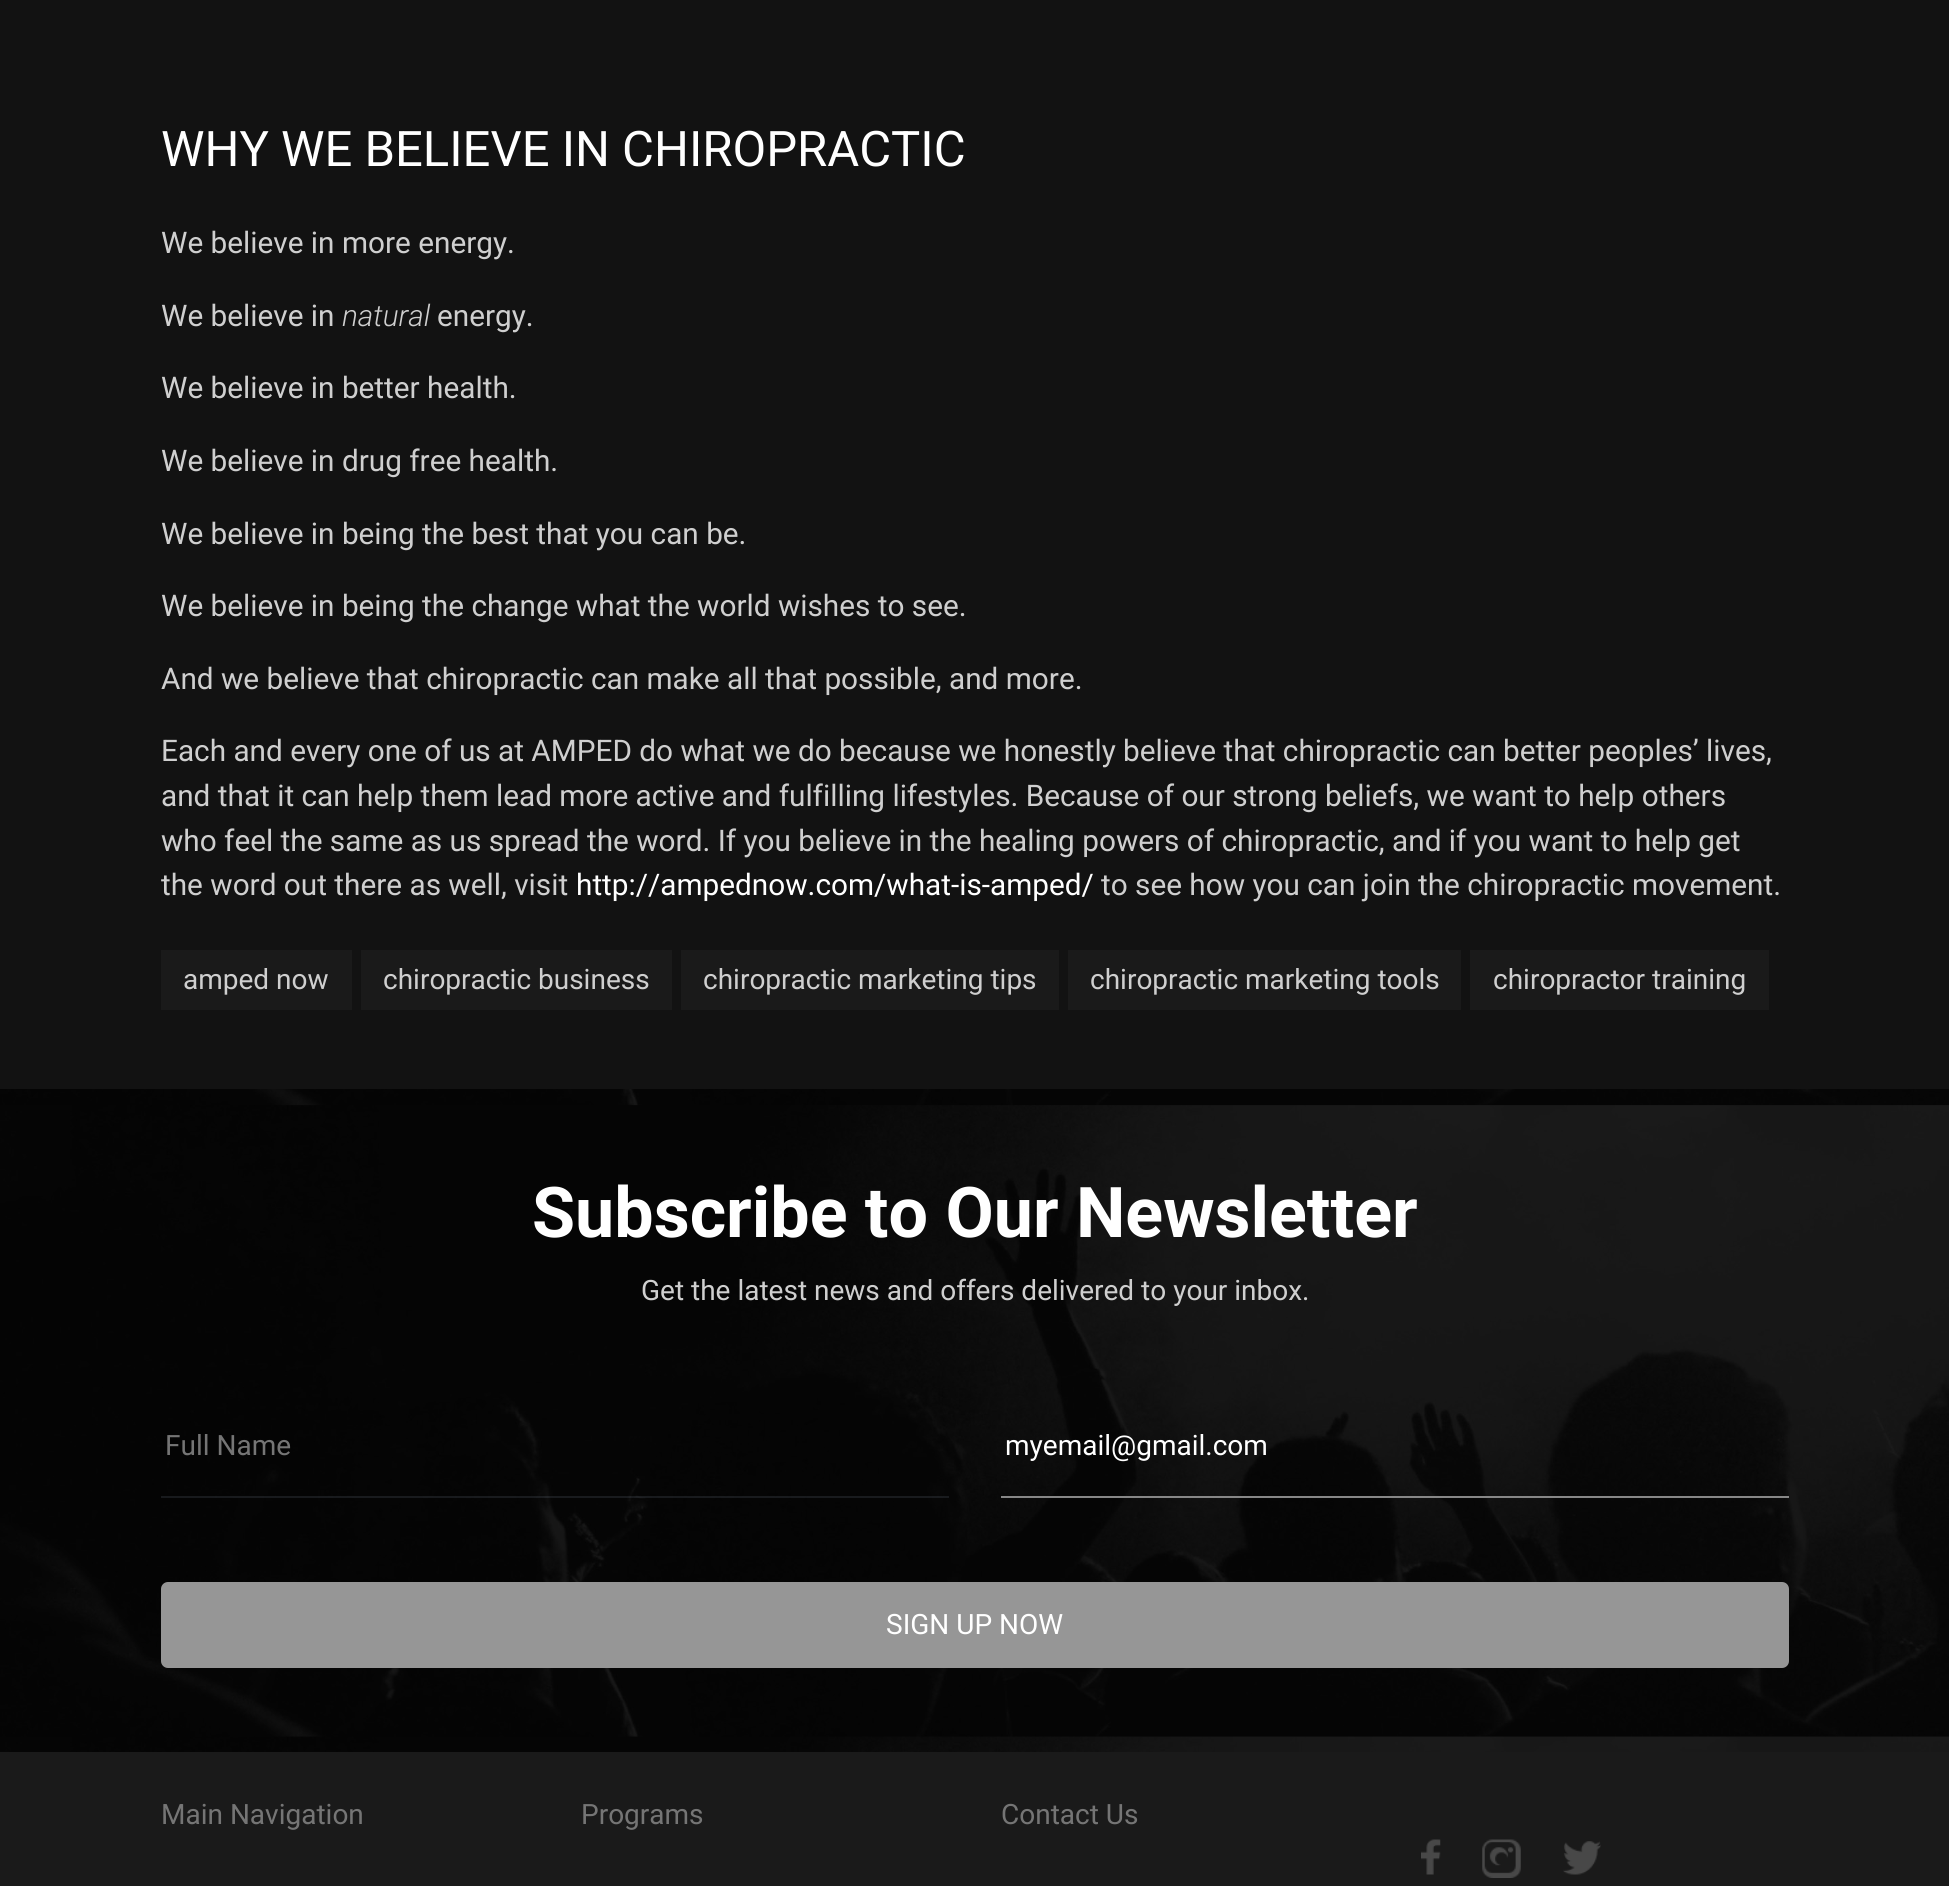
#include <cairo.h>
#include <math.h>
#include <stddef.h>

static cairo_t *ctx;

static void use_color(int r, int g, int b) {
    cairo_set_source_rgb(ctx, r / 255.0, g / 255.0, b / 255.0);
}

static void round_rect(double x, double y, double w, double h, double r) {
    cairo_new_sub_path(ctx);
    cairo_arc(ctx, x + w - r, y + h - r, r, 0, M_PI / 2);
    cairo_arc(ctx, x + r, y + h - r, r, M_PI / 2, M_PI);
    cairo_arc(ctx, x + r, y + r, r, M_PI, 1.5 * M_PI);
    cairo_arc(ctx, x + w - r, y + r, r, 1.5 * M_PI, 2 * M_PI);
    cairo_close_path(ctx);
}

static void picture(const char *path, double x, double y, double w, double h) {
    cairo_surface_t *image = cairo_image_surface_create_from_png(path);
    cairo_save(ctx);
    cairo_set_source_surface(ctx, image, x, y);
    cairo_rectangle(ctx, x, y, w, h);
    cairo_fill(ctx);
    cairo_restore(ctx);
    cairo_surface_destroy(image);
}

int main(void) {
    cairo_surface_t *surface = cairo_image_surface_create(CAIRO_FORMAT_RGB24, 1949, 1886);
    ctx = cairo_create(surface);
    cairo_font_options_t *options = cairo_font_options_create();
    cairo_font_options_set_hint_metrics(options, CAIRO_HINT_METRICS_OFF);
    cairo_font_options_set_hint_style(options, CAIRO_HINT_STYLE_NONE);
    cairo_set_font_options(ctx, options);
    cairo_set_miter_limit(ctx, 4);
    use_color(18, 18, 18);
    cairo_paint(ctx);
    cairo_select_font_face(ctx, "Roboto", CAIRO_FONT_SLANT_NORMAL, CAIRO_FONT_WEIGHT_NORMAL);
    cairo_set_font_size(ctx, 49);
    use_color(255, 255, 255);
    cairo_move_to(ctx, 161, 166);
    cairo_show_text(ctx, "WHY WE BELIEVE IN CHIROPRACTIC");
    cairo_set_font_size(ctx, 29.75);
    use_color(207, 207, 207);
    cairo_move_to(ctx, 161, 253);
    cairo_show_text(ctx, "We believe in more energy.");
    cairo_move_to(ctx, 161, 326);
    cairo_show_text(ctx, "We believe in");
    cairo_select_font_face(ctx, "Roboto Light", CAIRO_FONT_SLANT_ITALIC, CAIRO_FONT_WEIGHT_NORMAL);
    cairo_move_to(ctx, 342, 326);
    cairo_show_text(ctx, "natural");
    cairo_select_font_face(ctx, "Roboto", CAIRO_FONT_SLANT_NORMAL, CAIRO_FONT_WEIGHT_NORMAL);
    cairo_move_to(ctx, 437, 326);
    cairo_show_text(ctx, "energy.");
    cairo_move_to(ctx, 161, 398);
    cairo_show_text(ctx, "We believe in better health.");
    cairo_move_to(ctx, 161, 471);
    cairo_show_text(ctx, "We believe in drug free health.");
    cairo_move_to(ctx, 161, 544);
    cairo_show_text(ctx, "We believe in being the best that you can be.");
    cairo_move_to(ctx, 161, 616);
    cairo_show_text(ctx, "We believe in being the change what the world wishes to see.");
    cairo_move_to(ctx, 161, 689);
    cairo_show_text(ctx, "And we believe that chiropractic can make all that possible, and more.");
    cairo_move_to(ctx, 161, 761);
    cairo_show_text(ctx, "Each and every one of us at AMPED do what we do because we honestly believe that chiropractic can better peoples’ lives,");
    cairo_move_to(ctx, 161, 806);
    cairo_show_text(ctx, "and that it can help them lead more active and fulfilling lifestyles. Because of our strong beliefs, we want to help others");
    cairo_move_to(ctx, 161, 851);
    cairo_show_text(ctx, "who feel the same as us spread the word. If you believe in the healing powers of chiropractic, and if you want to help get");
    cairo_move_to(ctx, 161, 895);
    cairo_show_text(ctx, "the word out there as well, visit");
    use_color(255, 255, 255);
    cairo_move_to(ctx, 576, 895);
    cairo_show_text(ctx, "http://ampednow.com/what-is-amped/");
    use_color(207, 207, 207);
    cairo_move_to(ctx, 1101, 895);
    cairo_show_text(ctx, "to see how you can join the chiropractic movement.");
    use_color(26, 26, 26);
    cairo_rectangle(ctx, 161, 950, 191, 60);
    cairo_fill(ctx);
    cairo_set_font_size(ctx, 28);
    use_color(207, 207, 207);
    cairo_move_to(ctx, 183, 989);
    cairo_show_text(ctx, "amped now");
    use_color(26, 26, 26);
    cairo_rectangle(ctx, 361, 950, 311, 60);
    cairo_fill(ctx);
    use_color(207, 207, 207);
    cairo_move_to(ctx, 383, 989);
    cairo_show_text(ctx, "chiropractic business");
    use_color(26, 26, 26);
    cairo_rectangle(ctx, 681, 950, 378, 60);
    cairo_fill(ctx);
    use_color(207, 207, 207);
    cairo_move_to(ctx, 703, 989);
    cairo_show_text(ctx, "chiropractic marketing tips");
    use_color(26, 26, 26);
    cairo_rectangle(ctx, 1068, 950, 393, 60);
    cairo_fill(ctx);
    use_color(207, 207, 207);
    cairo_move_to(ctx, 1090, 989);
    cairo_show_text(ctx, "chiropractic marketing tools");
    use_color(26, 26, 26);
    cairo_rectangle(ctx, 1470, 950, 299, 60);
    cairo_fill(ctx);
    use_color(207, 207, 207);
    cairo_move_to(ctx, 1493, 989);
    cairo_show_text(ctx, "chiropractor training");
    picture("img1.png", 0, 1089, 1949, 663);
    cairo_select_font_face(ctx, "Roboto", CAIRO_FONT_SLANT_NORMAL, CAIRO_FONT_WEIGHT_BOLD);
    cairo_set_font_size(ctx, 70);
    use_color(255, 255, 255);
    cairo_move_to(ctx, 532, 1237);
    cairo_show_text(ctx, "Subscribe to Our Newsletter");
    cairo_select_font_face(ctx, "Roboto", CAIRO_FONT_SLANT_NORMAL, CAIRO_FONT_WEIGHT_NORMAL);
    cairo_set_font_size(ctx, 28);
    use_color(207, 207, 207);
    cairo_move_to(ctx, 641, 1300);
    cairo_show_text(ctx, "Get the latest news and offers delivered to your inbox.");
    cairo_set_source_rgba(ctx, 0.816, 0.898, 1, 0.1);
    cairo_rectangle(ctx, 161, 1496, 788, 2);
    cairo_fill(ctx);
    use_color(117, 117, 117);
    cairo_move_to(ctx, 165, 1455);
    cairo_show_text(ctx, "Full Name");
    use_color(135, 135, 135);
    cairo_rectangle(ctx, 1001, 1496, 788, 2);
    cairo_fill(ctx);
    use_color(255, 255, 255);
    cairo_move_to(ctx, 1005, 1455);
    cairo_show_text(ctx, "myemail@gmail.com");
    use_color(150, 150, 150);
    round_rect(161, 1582, 1628, 86, 7);
    cairo_fill(ctx);
    use_color(255, 255, 255);
    cairo_move_to(ctx, 886, 1634);
    cairo_show_text(ctx, "SIGN UP NOW");
    use_color(26, 26, 26);
    cairo_rectangle(ctx, 0, 1752, 1949, 134);
    cairo_fill(ctx);
    use_color(117, 117, 117);
    cairo_move_to(ctx, 161, 1824);
    cairo_show_text(ctx, "Main Navigation");
    cairo_move_to(ctx, 581, 1824);
    cairo_show_text(ctx, "Programs");
    cairo_move_to(ctx, 1001, 1824);
    cairo_show_text(ctx, "Contact Us");
    picture("img2.png", 1421, 1839, 20, 36);
    picture("img3.png", 1482, 1839, 39, 39);
    picture("img4.png", 1563, 1841, 38, 34);
    cairo_surface_write_to_png(surface, "result.png");
    cairo_font_options_destroy(options);
    cairo_destroy(ctx);
    cairo_surface_destroy(surface);
    return 0;
}
